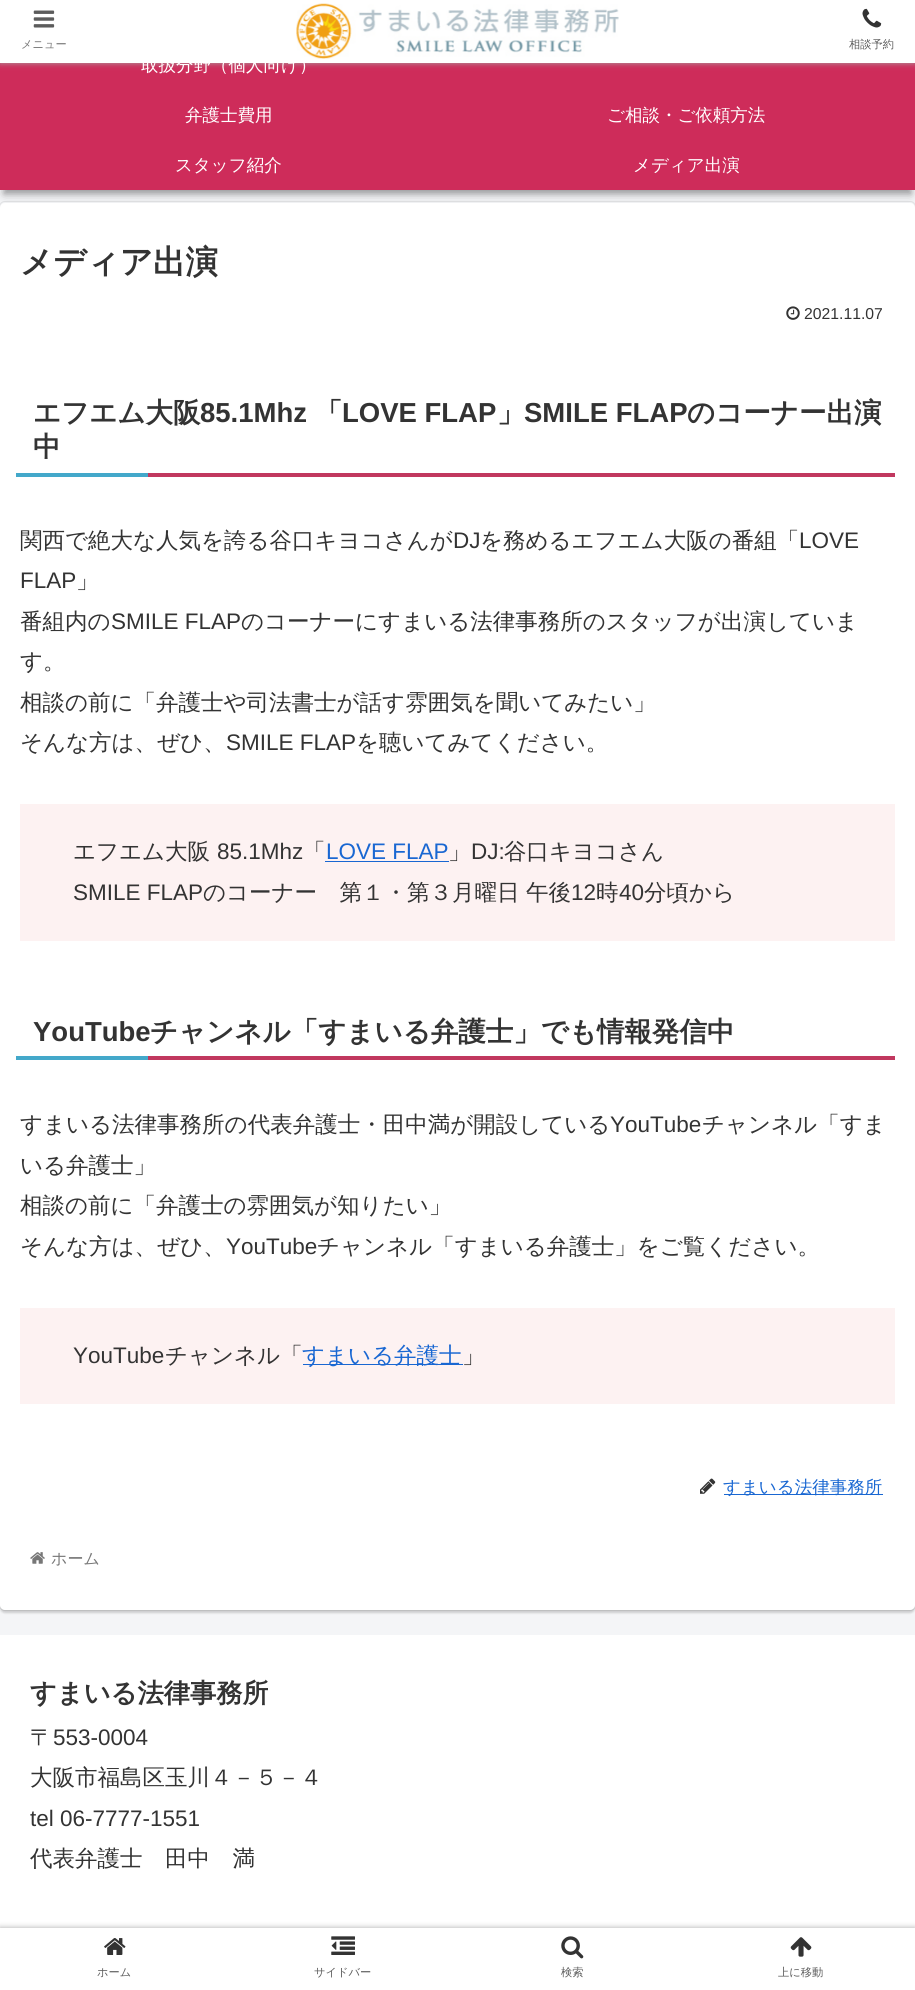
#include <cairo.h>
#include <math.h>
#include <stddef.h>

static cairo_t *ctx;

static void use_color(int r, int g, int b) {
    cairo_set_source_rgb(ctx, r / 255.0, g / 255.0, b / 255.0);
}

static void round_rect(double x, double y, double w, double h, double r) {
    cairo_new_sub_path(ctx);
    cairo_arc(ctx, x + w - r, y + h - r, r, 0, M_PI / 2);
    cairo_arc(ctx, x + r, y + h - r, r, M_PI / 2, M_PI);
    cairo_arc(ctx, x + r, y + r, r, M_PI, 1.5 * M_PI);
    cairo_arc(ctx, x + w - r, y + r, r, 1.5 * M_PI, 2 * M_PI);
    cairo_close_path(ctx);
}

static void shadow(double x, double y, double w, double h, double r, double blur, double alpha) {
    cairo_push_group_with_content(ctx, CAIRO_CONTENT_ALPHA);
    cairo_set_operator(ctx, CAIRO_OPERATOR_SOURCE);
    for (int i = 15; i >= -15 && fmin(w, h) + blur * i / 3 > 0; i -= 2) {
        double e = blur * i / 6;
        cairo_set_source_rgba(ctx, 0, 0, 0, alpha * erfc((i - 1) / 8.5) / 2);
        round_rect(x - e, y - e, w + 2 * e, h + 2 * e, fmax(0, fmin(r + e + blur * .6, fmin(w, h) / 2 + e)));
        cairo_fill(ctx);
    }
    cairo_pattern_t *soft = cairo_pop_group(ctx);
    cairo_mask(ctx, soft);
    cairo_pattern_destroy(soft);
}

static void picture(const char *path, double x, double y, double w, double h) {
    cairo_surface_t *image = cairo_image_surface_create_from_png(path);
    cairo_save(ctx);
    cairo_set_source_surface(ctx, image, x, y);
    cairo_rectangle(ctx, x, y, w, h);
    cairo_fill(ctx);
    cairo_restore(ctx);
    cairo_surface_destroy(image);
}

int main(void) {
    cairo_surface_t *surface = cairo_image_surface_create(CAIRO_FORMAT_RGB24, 915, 1990);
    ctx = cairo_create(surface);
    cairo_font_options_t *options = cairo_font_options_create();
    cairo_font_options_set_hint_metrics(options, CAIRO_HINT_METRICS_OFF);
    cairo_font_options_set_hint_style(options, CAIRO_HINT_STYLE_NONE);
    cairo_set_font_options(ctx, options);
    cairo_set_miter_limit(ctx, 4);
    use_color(244, 245, 247);
    cairo_paint(ctx);
    use_color(0, 0, 0);
    shadow(4, 30, 907, 164, 0, 6, 0.18);
    shadow(4, 30, 907, 164, 0, 3, 0.24);
    use_color(206, 44, 90);
    cairo_rectangle(ctx, 0, 63, 915, 127);
    cairo_fill(ctx);
    use_color(169, 169, 169);
    shadow(0, 0, 915, 63, 0, 3, 1);
    use_color(255, 255, 255);
    cairo_rectangle(ctx, 0, 0, 915, 63);
    cairo_fill(ctx);
    picture("img1.png", 33, 10, 22, 18);
    cairo_select_font_face(ctx, "WenQuanYi Zen Hei Medium", CAIRO_FONT_SLANT_NORMAL, CAIRO_FONT_WEIGHT_NORMAL);
    cairo_set_font_size(ctx, 11.25);
    use_color(119, 119, 119);
    cairo_move_to(ctx, 21, 48);
    cairo_show_text(ctx, "メニュー");
    cairo_set_font_size(ctx, 17.5);
    use_color(255, 255, 255);
    cairo_move_to(ctx, 141, 71);
    cairo_show_text(ctx, "取扱分野（個人向け）");
    picture("img2.png", 296, 3, 323, 56);
    picture("img3.png", 862, 8, 20, 20);
    cairo_set_font_size(ctx, 11.25);
    use_color(92, 92, 92);
    cairo_move_to(ctx, 849, 48);
    cairo_show_text(ctx, "相談予約");
    cairo_set_font_size(ctx, 17.5);
    use_color(255, 255, 255);
    cairo_move_to(ctx, 185, 121);
    cairo_show_text(ctx, "弁護士費用");
    cairo_move_to(ctx, 607, 121);
    cairo_show_text(ctx, "ご相談・ご依頼方法");
    cairo_move_to(ctx, 175, 171);
    cairo_show_text(ctx, "スタッフ紹介");
    cairo_move_to(ctx, 633, 171);
    cairo_show_text(ctx, "メディア出演");
    round_rect(-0.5, 201.5, 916, 1409, 5.5);
    cairo_set_source_rgba(ctx, 0, 0, 0, 0.08);
    cairo_set_line_width(ctx, 1);
    cairo_stroke(ctx);
    use_color(0, 0, 0);
    shadow(0, 205, 915, 1408, 5, 1, 0.16);
    use_color(255, 255, 255);
    round_rect(0, 203, 915, 1407, 5);
    cairo_fill(ctx);
    cairo_select_font_face(ctx, "WenQuanYi Zen Hei", CAIRO_FONT_SLANT_NORMAL, CAIRO_FONT_WEIGHT_BOLD);
    cairo_set_font_size(ctx, 32.5);
    use_color(51, 51, 51);
    cairo_move_to(ctx, 20, 273);
    cairo_show_text(ctx, "メディア出演");
    picture("img4.png", 786, 306, 14, 14);
    cairo_select_font_face(ctx, "Liberation Sans", CAIRO_FONT_SLANT_NORMAL, CAIRO_FONT_WEIGHT_NORMAL);
    cairo_set_font_size(ctx, 15.75);
    cairo_move_to(ctx, 804, 319);
    cairo_show_text(ctx, "2021.11.07");
    use_color(193, 56, 95);
    cairo_rectangle(ctx, 148, 473, 747, 4);
    cairo_fill(ctx);
    cairo_select_font_face(ctx, "WenQuanYi Zen Hei", CAIRO_FONT_SLANT_NORMAL, CAIRO_FONT_WEIGHT_BOLD);
    cairo_set_font_size(ctx, 27.5);
    use_color(51, 51, 51);
    cairo_move_to(ctx, 33, 422);
    cairo_show_text(ctx, "エフエム大阪");
    cairo_select_font_face(ctx, "Liberation Sans", CAIRO_FONT_SLANT_NORMAL, CAIRO_FONT_WEIGHT_BOLD);
    cairo_move_to(ctx, 200, 422);
    cairo_show_text(ctx, "85.1Mhz");
    cairo_select_font_face(ctx, "WenQuanYi Zen Hei", CAIRO_FONT_SLANT_NORMAL, CAIRO_FONT_WEIGHT_BOLD);
    cairo_move_to(ctx, 315, 422);
    cairo_show_text(ctx, "「");
    cairo_select_font_face(ctx, "Liberation Sans", CAIRO_FONT_SLANT_NORMAL, CAIRO_FONT_WEIGHT_BOLD);
    cairo_move_to(ctx, 342, 422);
    cairo_show_text(ctx, "LOVE FLAP");
    cairo_select_font_face(ctx, "WenQuanYi Zen Hei", CAIRO_FONT_SLANT_NORMAL, CAIRO_FONT_WEIGHT_BOLD);
    cairo_move_to(ctx, 497, 422);
    cairo_show_text(ctx, "」");
    cairo_select_font_face(ctx, "Liberation Sans", CAIRO_FONT_SLANT_NORMAL, CAIRO_FONT_WEIGHT_BOLD);
    cairo_move_to(ctx, 524, 422);
    cairo_show_text(ctx, "SMILE FLAP");
    cairo_select_font_face(ctx, "WenQuanYi Zen Hei", CAIRO_FONT_SLANT_NORMAL, CAIRO_FONT_WEIGHT_BOLD);
    cairo_move_to(ctx, 687, 422);
    cairo_show_text(ctx, "のコーナー出演");
    cairo_move_to(ctx, 33, 456);
    cairo_show_text(ctx, "中");
    use_color(67, 168, 202);
    cairo_rectangle(ctx, 16, 473, 132, 4);
    cairo_fill(ctx);
    cairo_select_font_face(ctx, "WenQuanYi Zen Hei Medium", CAIRO_FONT_SLANT_NORMAL, CAIRO_FONT_WEIGHT_NORMAL);
    cairo_set_font_size(ctx, 22.5);
    use_color(51, 51, 51);
    cairo_move_to(ctx, 20, 548);
    cairo_show_text(ctx, "関西で絶大な人気を誇る谷口キヨコさんが");
    cairo_select_font_face(ctx, "Liberation Sans", CAIRO_FONT_SLANT_NORMAL, CAIRO_FONT_WEIGHT_NORMAL);
    cairo_move_to(ctx, 453, 548);
    cairo_show_text(ctx, "DJ");
    cairo_select_font_face(ctx, "WenQuanYi Zen Hei Medium", CAIRO_FONT_SLANT_NORMAL, CAIRO_FONT_WEIGHT_NORMAL);
    cairo_move_to(ctx, 480, 548);
    cairo_show_text(ctx, "を務めるエフエム大阪の番組「");
    cairo_select_font_face(ctx, "Liberation Sans", CAIRO_FONT_SLANT_NORMAL, CAIRO_FONT_WEIGHT_NORMAL);
    cairo_move_to(ctx, 799, 548);
    cairo_show_text(ctx, "LOVE");
    cairo_move_to(ctx, 20, 588);
    cairo_show_text(ctx, "FLAP");
    cairo_select_font_face(ctx, "WenQuanYi Zen Hei Medium", CAIRO_FONT_SLANT_NORMAL, CAIRO_FONT_WEIGHT_NORMAL);
    cairo_move_to(ctx, 76, 588);
    cairo_show_text(ctx, "」");
    cairo_move_to(ctx, 20, 629);
    cairo_show_text(ctx, "番組内の");
    cairo_select_font_face(ctx, "Liberation Sans", CAIRO_FONT_SLANT_NORMAL, CAIRO_FONT_WEIGHT_NORMAL);
    cairo_move_to(ctx, 111, 629);
    cairo_show_text(ctx, "SMILE FLAP");
    cairo_select_font_face(ctx, "WenQuanYi Zen Hei Medium", CAIRO_FONT_SLANT_NORMAL, CAIRO_FONT_WEIGHT_NORMAL);
    cairo_move_to(ctx, 241, 629);
    cairo_show_text(ctx, "のコーナーにすまいる法律事務所のスタッフが出演していま");
    cairo_move_to(ctx, 20, 669);
    cairo_show_text(ctx, "す。");
    cairo_move_to(ctx, 20, 710);
    cairo_show_text(ctx, "相談の前に「弁護士や司法書士が話す雰囲気を聞いてみたい」");
    cairo_move_to(ctx, 20, 750);
    cairo_show_text(ctx, "そんな方は、ぜひ、");
    cairo_select_font_face(ctx, "Liberation Sans", CAIRO_FONT_SLANT_NORMAL, CAIRO_FONT_WEIGHT_NORMAL);
    cairo_move_to(ctx, 226, 750);
    cairo_show_text(ctx, "SMILE FLAP");
    cairo_select_font_face(ctx, "WenQuanYi Zen Hei Medium", CAIRO_FONT_SLANT_NORMAL, CAIRO_FONT_WEIGHT_NORMAL);
    cairo_move_to(ctx, 356, 750);
    cairo_show_text(ctx, "を聴いてみてください。");
    use_color(253, 242, 242);
    cairo_rectangle(ctx, 20, 804, 875, 137);
    cairo_fill(ctx);
    use_color(51, 51, 51);
    cairo_move_to(ctx, 73, 859);
    cairo_show_text(ctx, "エフエム大阪");
    cairo_select_font_face(ctx, "Liberation Sans", CAIRO_FONT_SLANT_NORMAL, CAIRO_FONT_WEIGHT_NORMAL);
    cairo_move_to(ctx, 217, 859);
    cairo_show_text(ctx, "85.1Mhz");
    cairo_select_font_face(ctx, "WenQuanYi Zen Hei Medium", CAIRO_FONT_SLANT_NORMAL, CAIRO_FONT_WEIGHT_NORMAL);
    cairo_move_to(ctx, 303, 859);
    cairo_show_text(ctx, "「");
    cairo_select_font_face(ctx, "Liberation Sans", CAIRO_FONT_SLANT_NORMAL, CAIRO_FONT_WEIGHT_NORMAL);
    use_color(25, 103, 210);
    cairo_move_to(ctx, 326, 859);
    cairo_show_text(ctx, "LOVE FLAP");
    cairo_rectangle(ctx, 325, 861, 124, 1);
    cairo_fill(ctx);
    cairo_select_font_face(ctx, "WenQuanYi Zen Hei Medium", CAIRO_FONT_SLANT_NORMAL, CAIRO_FONT_WEIGHT_NORMAL);
    use_color(51, 51, 51);
    cairo_move_to(ctx, 448, 859);
    cairo_show_text(ctx, "」");
    cairo_select_font_face(ctx, "Liberation Sans", CAIRO_FONT_SLANT_NORMAL, CAIRO_FONT_WEIGHT_NORMAL);
    cairo_move_to(ctx, 471, 859);
    cairo_show_text(ctx, "DJ:");
    cairo_select_font_face(ctx, "WenQuanYi Zen Hei Medium", CAIRO_FONT_SLANT_NORMAL, CAIRO_FONT_WEIGHT_NORMAL);
    cairo_move_to(ctx, 504, 859);
    cairo_show_text(ctx, "谷口キヨコさん");
    cairo_select_font_face(ctx, "Liberation Sans", CAIRO_FONT_SLANT_NORMAL, CAIRO_FONT_WEIGHT_NORMAL);
    cairo_move_to(ctx, 73, 900);
    cairo_show_text(ctx, "SMILE FLAP");
    cairo_select_font_face(ctx, "WenQuanYi Zen Hei Medium", CAIRO_FONT_SLANT_NORMAL, CAIRO_FONT_WEIGHT_NORMAL);
    cairo_move_to(ctx, 203, 900);
    cairo_show_text(ctx, "のコーナー　第１・第３月曜日");
    cairo_move_to(ctx, 526, 900);
    cairo_show_text(ctx, "午後");
    cairo_select_font_face(ctx, "Liberation Sans", CAIRO_FONT_SLANT_NORMAL, CAIRO_FONT_WEIGHT_NORMAL);
    cairo_move_to(ctx, 571, 900);
    cairo_show_text(ctx, "12");
    cairo_select_font_face(ctx, "WenQuanYi Zen Hei Medium", CAIRO_FONT_SLANT_NORMAL, CAIRO_FONT_WEIGHT_NORMAL);
    cairo_move_to(ctx, 596, 900);
    cairo_show_text(ctx, "時");
    cairo_select_font_face(ctx, "Liberation Sans", CAIRO_FONT_SLANT_NORMAL, CAIRO_FONT_WEIGHT_NORMAL);
    cairo_move_to(ctx, 619, 900);
    cairo_show_text(ctx, "40");
    cairo_select_font_face(ctx, "WenQuanYi Zen Hei Medium", CAIRO_FONT_SLANT_NORMAL, CAIRO_FONT_WEIGHT_NORMAL);
    cairo_move_to(ctx, 644, 900);
    cairo_show_text(ctx, "分頃から");
    use_color(193, 56, 95);
    cairo_rectangle(ctx, 148, 1056, 747, 4);
    cairo_fill(ctx);
    cairo_select_font_face(ctx, "Liberation Sans", CAIRO_FONT_SLANT_NORMAL, CAIRO_FONT_WEIGHT_BOLD);
    cairo_set_font_size(ctx, 27.5);
    use_color(51, 51, 51);
    cairo_move_to(ctx, 33, 1041);
    cairo_show_text(ctx, "YouTube");
    cairo_select_font_face(ctx, "WenQuanYi Zen Hei", CAIRO_FONT_SLANT_NORMAL, CAIRO_FONT_WEIGHT_BOLD);
    cairo_move_to(ctx, 150, 1041);
    cairo_show_text(ctx, "チャンネル「すまいる弁護士」でも情報発信中");
    use_color(67, 168, 202);
    cairo_rectangle(ctx, 16, 1056, 132, 4);
    cairo_fill(ctx);
    cairo_select_font_face(ctx, "WenQuanYi Zen Hei Medium", CAIRO_FONT_SLANT_NORMAL, CAIRO_FONT_WEIGHT_NORMAL);
    cairo_set_font_size(ctx, 22.5);
    use_color(51, 51, 51);
    cairo_move_to(ctx, 20, 1132);
    cairo_show_text(ctx, "すまいる法律事務所の代表弁護士・田中満が開設している");
    cairo_select_font_face(ctx, "Liberation Sans", CAIRO_FONT_SLANT_NORMAL, CAIRO_FONT_WEIGHT_NORMAL);
    cairo_move_to(ctx, 610, 1132);
    cairo_show_text(ctx, "YouTube");
    cairo_select_font_face(ctx, "WenQuanYi Zen Hei Medium", CAIRO_FONT_SLANT_NORMAL, CAIRO_FONT_WEIGHT_NORMAL);
    cairo_move_to(ctx, 702, 1132);
    cairo_show_text(ctx, "チャンネル「すま");
    cairo_move_to(ctx, 20, 1173);
    cairo_show_text(ctx, "いる弁護士」");
    cairo_move_to(ctx, 20, 1213);
    cairo_show_text(ctx, "相談の前に「弁護士の雰囲気が知りたい」");
    cairo_move_to(ctx, 20, 1254);
    cairo_show_text(ctx, "そんな方は、ぜひ、");
    cairo_select_font_face(ctx, "Liberation Sans", CAIRO_FONT_SLANT_NORMAL, CAIRO_FONT_WEIGHT_NORMAL);
    cairo_move_to(ctx, 226, 1254);
    cairo_show_text(ctx, "YouTube");
    cairo_select_font_face(ctx, "WenQuanYi Zen Hei Medium", CAIRO_FONT_SLANT_NORMAL, CAIRO_FONT_WEIGHT_NORMAL);
    cairo_move_to(ctx, 317, 1254);
    cairo_show_text(ctx, "チャンネル「すまいる弁護士」をご覧ください。");
    use_color(253, 242, 242);
    cairo_rectangle(ctx, 20, 1308, 875, 96);
    cairo_fill(ctx);
    cairo_select_font_face(ctx, "Liberation Sans", CAIRO_FONT_SLANT_NORMAL, CAIRO_FONT_WEIGHT_NORMAL);
    use_color(51, 51, 51);
    cairo_move_to(ctx, 73, 1363);
    cairo_show_text(ctx, "YouTube");
    cairo_select_font_face(ctx, "WenQuanYi Zen Hei Medium", CAIRO_FONT_SLANT_NORMAL, CAIRO_FONT_WEIGHT_NORMAL);
    cairo_move_to(ctx, 165, 1363);
    cairo_show_text(ctx, "チャンネル「");
    use_color(25, 103, 210);
    cairo_rectangle(ctx, 303, 1364, 160, 1);
    cairo_fill(ctx);
    cairo_move_to(ctx, 302, 1363);
    cairo_show_text(ctx, "すまいる弁護士");
    use_color(51, 51, 51);
    cairo_move_to(ctx, 462, 1363);
    cairo_show_text(ctx, "」");
    picture("img5.png", 700, 1478, 16, 16);
    use_color(25, 103, 210);
    cairo_rectangle(ctx, 724, 1494, 159, 1);
    cairo_fill(ctx);
    cairo_set_font_size(ctx, 17.5);
    cairo_move_to(ctx, 723, 1493);
    cairo_show_text(ctx, "すまいる法律事務所");
    picture("img6.png", 30, 1552, 15, 12);
    cairo_set_font_size(ctx, 16);
    use_color(119, 119, 119);
    cairo_move_to(ctx, 51, 1564);
    cairo_show_text(ctx, "ホーム");
    use_color(255, 255, 255);
    cairo_rectangle(ctx, 0, 1635, 915, 293);
    cairo_fill(ctx);
    cairo_select_font_face(ctx, "WenQuanYi Zen Hei", CAIRO_FONT_SLANT_NORMAL, CAIRO_FONT_WEIGHT_BOLD);
    cairo_set_font_size(ctx, 26.25);
    use_color(51, 51, 51);
    cairo_move_to(ctx, 30, 1702);
    cairo_show_text(ctx, "すまいる法律事務所");
    cairo_select_font_face(ctx, "WenQuanYi Zen Hei Medium", CAIRO_FONT_SLANT_NORMAL, CAIRO_FONT_WEIGHT_NORMAL);
    cairo_set_font_size(ctx, 22.5);
    cairo_move_to(ctx, 30, 1745);
    cairo_show_text(ctx, "〒");
    cairo_select_font_face(ctx, "Liberation Sans", CAIRO_FONT_SLANT_NORMAL, CAIRO_FONT_WEIGHT_NORMAL);
    cairo_move_to(ctx, 53, 1745);
    cairo_show_text(ctx, "553-0004");
    cairo_select_font_face(ctx, "WenQuanYi Zen Hei Medium", CAIRO_FONT_SLANT_NORMAL, CAIRO_FONT_WEIGHT_NORMAL);
    cairo_move_to(ctx, 30, 1785);
    cairo_show_text(ctx, "大阪市福島区玉川４－５－４");
    cairo_select_font_face(ctx, "Liberation Sans", CAIRO_FONT_SLANT_NORMAL, CAIRO_FONT_WEIGHT_NORMAL);
    cairo_move_to(ctx, 30, 1826);
    cairo_show_text(ctx, "tel 06-7777-1551");
    cairo_select_font_face(ctx, "WenQuanYi Zen Hei Medium", CAIRO_FONT_SLANT_NORMAL, CAIRO_FONT_WEIGHT_NORMAL);
    cairo_move_to(ctx, 30, 1866);
    cairo_show_text(ctx, "代表弁護士　田中　満");
    use_color(169, 169, 169);
    shadow(0, 1928, 915, 62, 0, 3, 1);
    use_color(255, 255, 255);
    cairo_rectangle(ctx, 0, 1928, 915, 62);
    cairo_fill(ctx);
    picture("img7.png", 104, 1938, 22, 17);
    cairo_set_font_size(ctx, 11.25);
    use_color(92, 92, 92);
    cairo_move_to(ctx, 97, 1976);
    cairo_show_text(ctx, "ホーム");
    picture("img8.png", 331, 1936, 24, 19);
    cairo_move_to(ctx, 314, 1976);
    cairo_show_text(ctx, "サイドバー");
    picture("img9.png", 561, 1936, 23, 23);
    cairo_move_to(ctx, 561, 1976);
    cairo_show_text(ctx, "検索");
    picture("img10.png", 790, 1937, 22, 20);
    cairo_move_to(ctx, 778, 1976);
    cairo_show_text(ctx, "上に移動");
    cairo_surface_write_to_png(surface, "result.png");
    cairo_font_options_destroy(options);
    cairo_destroy(ctx);
    cairo_surface_destroy(surface);
    return 0;
}
